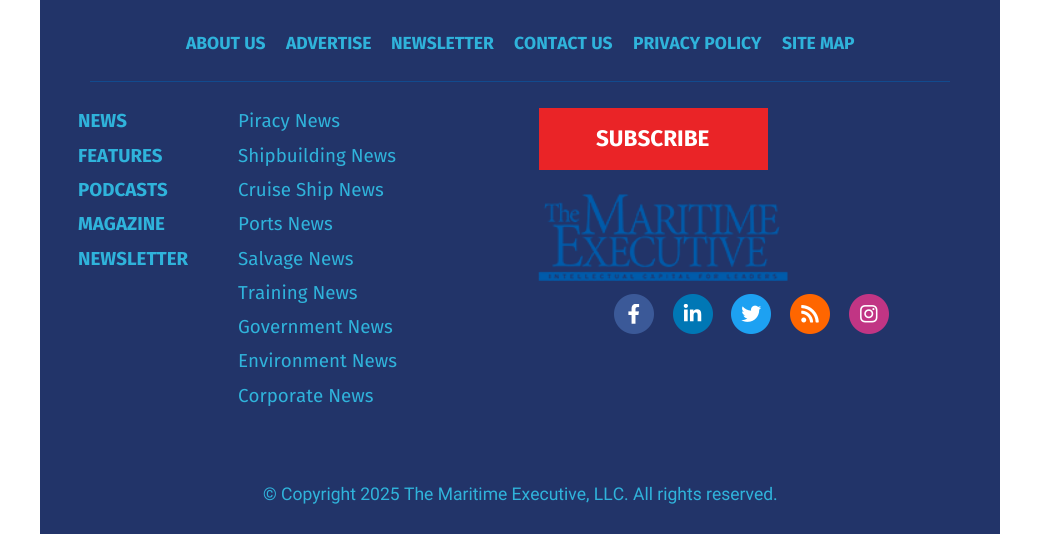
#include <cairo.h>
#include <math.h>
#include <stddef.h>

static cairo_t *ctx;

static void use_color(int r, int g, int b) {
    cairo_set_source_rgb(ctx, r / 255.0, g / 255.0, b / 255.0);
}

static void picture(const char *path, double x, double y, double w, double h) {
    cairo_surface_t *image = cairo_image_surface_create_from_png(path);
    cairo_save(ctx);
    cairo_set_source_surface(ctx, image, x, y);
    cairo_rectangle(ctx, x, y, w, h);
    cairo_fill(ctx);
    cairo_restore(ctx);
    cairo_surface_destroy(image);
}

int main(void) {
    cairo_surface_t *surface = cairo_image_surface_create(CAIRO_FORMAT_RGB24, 1040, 559);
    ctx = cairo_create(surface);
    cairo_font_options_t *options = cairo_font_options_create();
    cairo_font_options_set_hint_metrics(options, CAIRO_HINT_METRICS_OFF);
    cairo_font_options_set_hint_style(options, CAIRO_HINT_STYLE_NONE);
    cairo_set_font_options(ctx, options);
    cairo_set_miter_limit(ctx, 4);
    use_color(255, 255, 255);
    cairo_paint(ctx);
    use_color(34, 52, 105);
    cairo_rectangle(ctx, 40, 0, 960, 534);
    cairo_fill(ctx);
    use_color(18, 74, 142);
    cairo_rectangle(ctx, 90, 81, 860, 1);
    cairo_fill(ctx);
    cairo_select_font_face(ctx, "Fira Sans", CAIRO_FONT_SLANT_NORMAL, CAIRO_FONT_WEIGHT_BOLD);
    cairo_set_font_size(ctx, 17.5);
    use_color(47, 179, 219);
    cairo_move_to(ctx, 186, 49);
    cairo_show_text(ctx, "ABOUT US");
    cairo_move_to(ctx, 286, 49);
    cairo_show_text(ctx, "ADVERTISE");
    cairo_move_to(ctx, 391, 49);
    cairo_show_text(ctx, "NEWSLETTER");
    cairo_move_to(ctx, 514, 49);
    cairo_show_text(ctx, "CONTACT US");
    cairo_move_to(ctx, 633, 49);
    cairo_show_text(ctx, "PRIVACY POLICY");
    cairo_move_to(ctx, 782, 49);
    cairo_show_text(ctx, "SITE MAP");
    cairo_set_font_size(ctx, 18.75);
    cairo_move_to(ctx, 78, 127);
    cairo_show_text(ctx, "NEWS");
    cairo_move_to(ctx, 78, 162);
    cairo_show_text(ctx, "FEATURES");
    cairo_move_to(ctx, 78, 196);
    cairo_show_text(ctx, "PODCASTS");
    cairo_move_to(ctx, 78, 230);
    cairo_show_text(ctx, "MAGAZINE");
    cairo_move_to(ctx, 78, 265);
    cairo_show_text(ctx, "NEWSLETTER");
    cairo_select_font_face(ctx, "Fira Sans", CAIRO_FONT_SLANT_NORMAL, CAIRO_FONT_WEIGHT_NORMAL);
    cairo_move_to(ctx, 238, 127);
    cairo_show_text(ctx, "Piracy News");
    cairo_move_to(ctx, 238, 162);
    cairo_show_text(ctx, "Shipbuilding News");
    cairo_move_to(ctx, 238, 196);
    cairo_show_text(ctx, "Cruise Ship News");
    cairo_move_to(ctx, 238, 230);
    cairo_show_text(ctx, "Ports News");
    cairo_move_to(ctx, 238, 265);
    cairo_show_text(ctx, "Salvage News");
    cairo_move_to(ctx, 238, 299);
    cairo_show_text(ctx, "Training News");
    cairo_move_to(ctx, 238, 333);
    cairo_show_text(ctx, "Government News");
    cairo_move_to(ctx, 238, 367);
    cairo_show_text(ctx, "Environment News");
    cairo_move_to(ctx, 238, 402);
    cairo_show_text(ctx, "Corporate News");
    use_color(234, 36, 39);
    cairo_rectangle(ctx, 539, 108, 229, 62);
    cairo_fill(ctx);
    cairo_select_font_face(ctx, "Fira Sans", CAIRO_FONT_SLANT_NORMAL, CAIRO_FONT_WEIGHT_BOLD);
    cairo_set_font_size(ctx, 22.5);
    use_color(255, 255, 255);
    cairo_move_to(ctx, 596, 146);
    cairo_show_text(ctx, "SUBSCRIBE");
    picture("img1.png", 538, 194, 250, 87);
    use_color(59, 89, 152);
    cairo_arc(ctx, 634, 314, 20, 0, 2 * M_PI);
    cairo_fill(ctx);
    picture("img2.png", 628, 304, 12, 20);
    use_color(0, 119, 181);
    cairo_arc(ctx, 693, 314, 20, 0, 2 * M_PI);
    cairo_fill(ctx);
    picture("img3.png", 683, 304, 19, 18);
    use_color(29, 161, 242);
    cairo_arc(ctx, 751, 314, 20, 0, 2 * M_PI);
    cairo_fill(ctx);
    picture("img4.png", 741, 305, 20, 17);
    use_color(255, 102, 0);
    cairo_arc(ctx, 810, 314, 20, 0, 2 * M_PI);
    cairo_fill(ctx);
    picture("img5.png", 801, 305, 18, 18);
    use_color(193, 53, 132);
    cairo_arc(ctx, 869, 314, 20, 0, 2 * M_PI);
    cairo_fill(ctx);
    picture("img6.png", 860, 305, 18, 18);
    cairo_select_font_face(ctx, "Roboto", CAIRO_FONT_SLANT_NORMAL, CAIRO_FONT_WEIGHT_NORMAL);
    cairo_set_font_size(ctx, 17.5);
    use_color(47, 179, 219);
    cairo_move_to(ctx, 263, 500);
    cairo_show_text(ctx, "© Copyright 2025 The Maritime Executive, LLC. All rights reserved.");
    cairo_surface_write_to_png(surface, "result.png");
    cairo_font_options_destroy(options);
    cairo_destroy(ctx);
    cairo_surface_destroy(surface);
    return 0;
}
